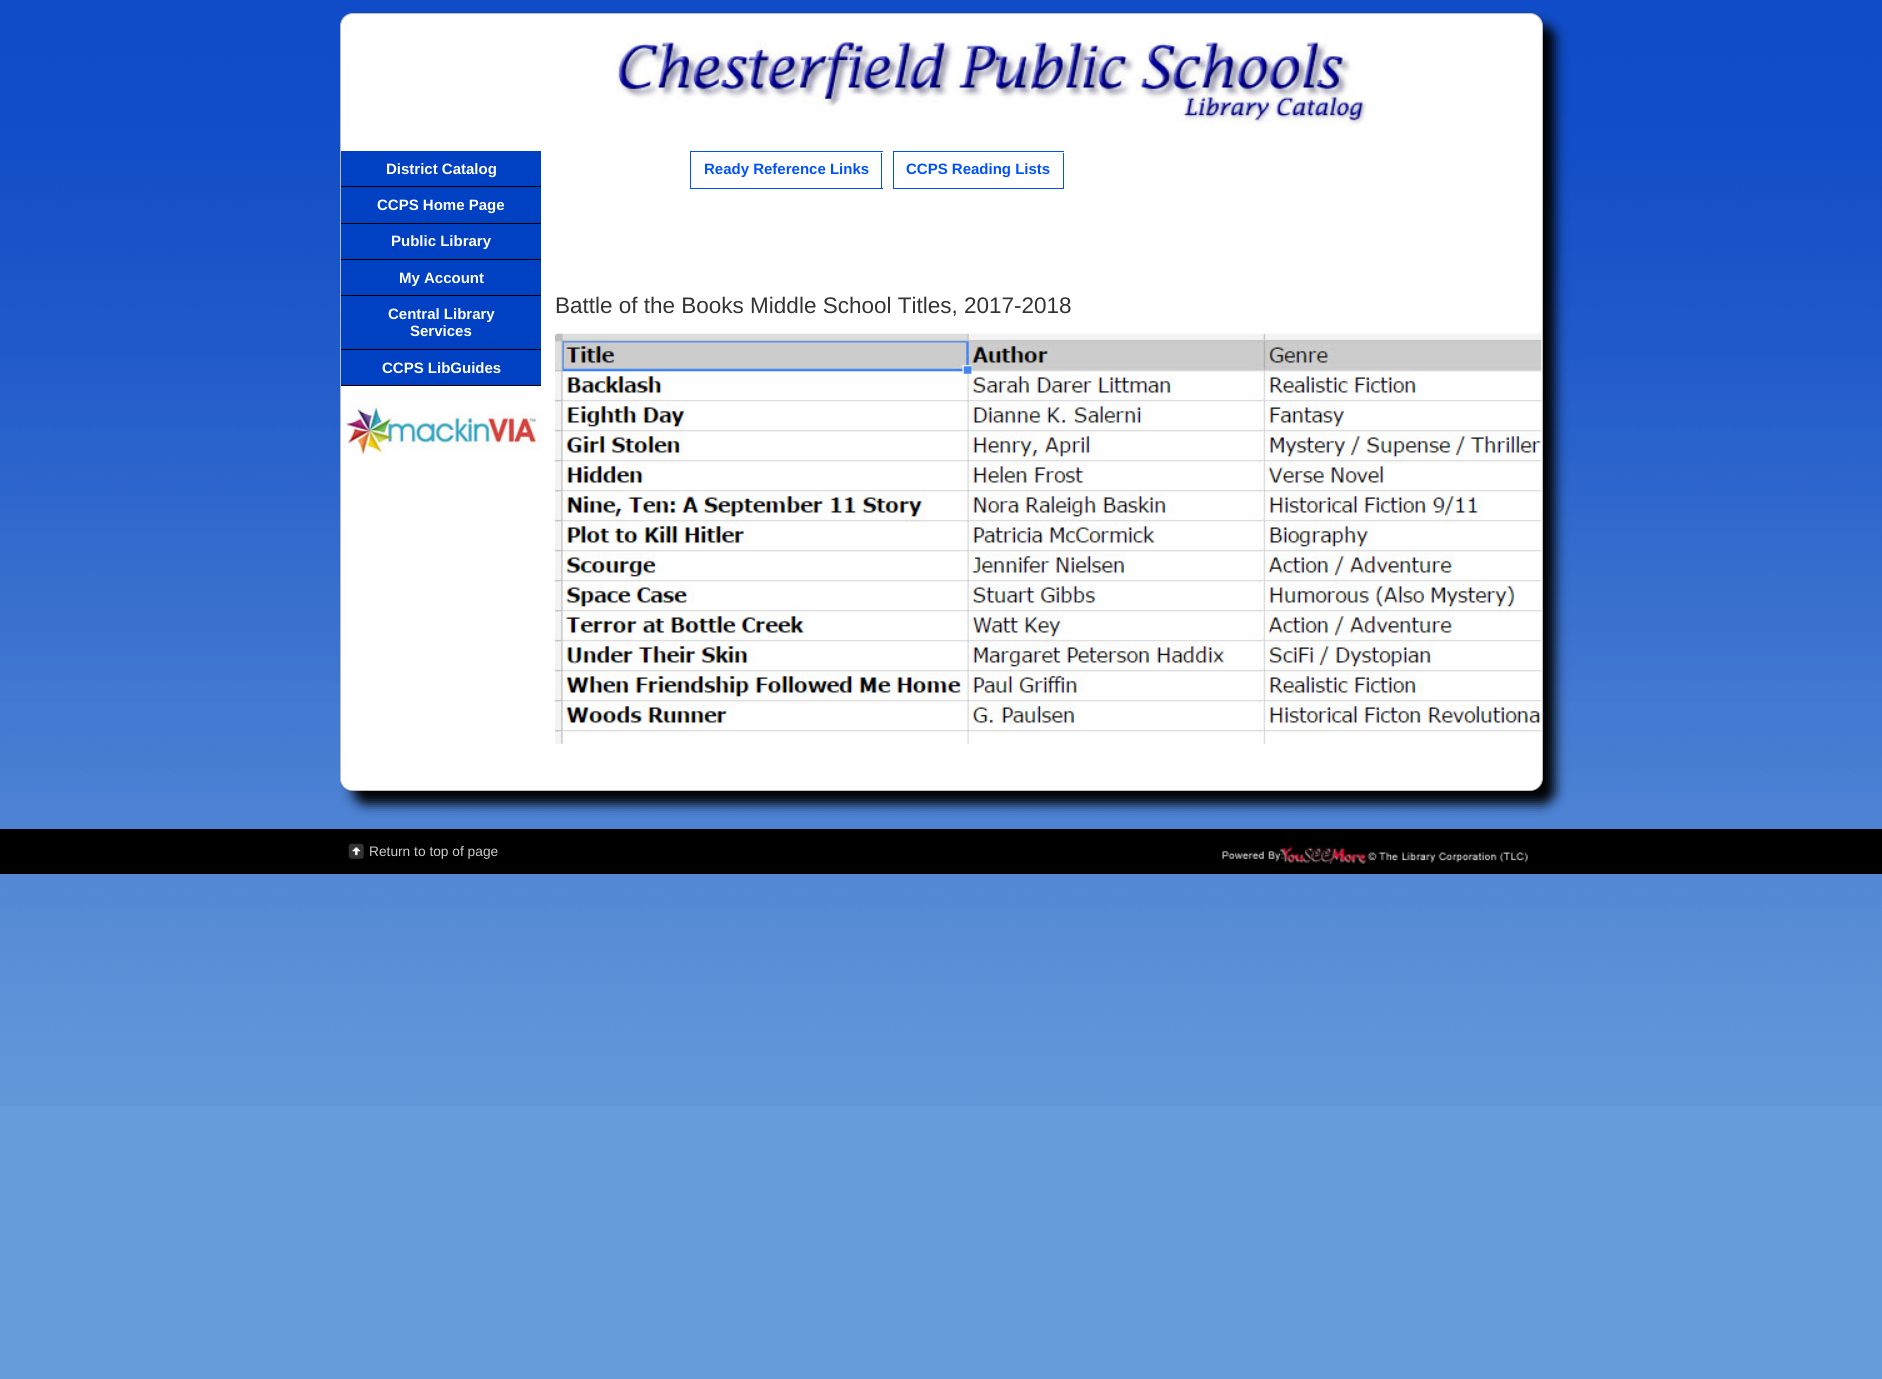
#include <cairo.h>
#include <math.h>
#include <stddef.h>

static cairo_t *ctx;

static void use_color(int r, int g, int b) {
    cairo_set_source_rgb(ctx, r / 255.0, g / 255.0, b / 255.0);
}

static void round_rect(double x, double y, double w, double h, double r) {
    cairo_new_sub_path(ctx);
    cairo_arc(ctx, x + w - r, y + h - r, r, 0, M_PI / 2);
    cairo_arc(ctx, x + r, y + h - r, r, M_PI / 2, M_PI);
    cairo_arc(ctx, x + r, y + r, r, M_PI, 1.5 * M_PI);
    cairo_arc(ctx, x + w - r, y + r, r, 1.5 * M_PI, 2 * M_PI);
    cairo_close_path(ctx);
}

static void shadow(double x, double y, double w, double h, double r, double blur, double alpha) {
    cairo_push_group_with_content(ctx, CAIRO_CONTENT_ALPHA);
    cairo_set_operator(ctx, CAIRO_OPERATOR_SOURCE);
    for (int i = 15; i >= -15 && fmin(w, h) + blur * i / 3 > 0; i -= 2) {
        double e = blur * i / 6;
        cairo_set_source_rgba(ctx, 0, 0, 0, alpha * erfc((i - 1) / 8.5) / 2);
        round_rect(x - e, y - e, w + 2 * e, h + 2 * e, fmax(0, fmin(r + e + blur * .6, fmin(w, h) / 2 + e)));
        cairo_fill(ctx);
    }
    cairo_pattern_t *soft = cairo_pop_group(ctx);
    cairo_mask(ctx, soft);
    cairo_pattern_destroy(soft);
}

static void picture(const char *path, double x, double y, double w, double h) {
    cairo_surface_t *image = cairo_image_surface_create_from_png(path);
    cairo_save(ctx);
    cairo_set_source_surface(ctx, image, x, y);
    cairo_rectangle(ctx, x, y, w, h);
    cairo_fill(ctx);
    cairo_restore(ctx);
    cairo_surface_destroy(image);
}

int main(void) {
    cairo_surface_t *surface = cairo_image_surface_create(CAIRO_FORMAT_RGB24, 1882, 1379);
    ctx = cairo_create(surface);
    cairo_font_options_t *options = cairo_font_options_create();
    cairo_font_options_set_hint_metrics(options, CAIRO_HINT_METRICS_OFF);
    cairo_font_options_set_hint_style(options, CAIRO_HINT_STYLE_NONE);
    cairo_set_font_options(ctx, options);
    cairo_set_miter_limit(ctx, 4);
    use_color(104, 155, 218);
    cairo_paint(ctx);
    picture("img1.png", 0, 0, 1882, 1106);
    use_color(0, 0, 0);
    shadow(353, 25, 1202, 779, 13, 6, 1);
    use_color(255, 255, 255);
    round_rect(340.5, 13.5, 1202, 777, 12.5);
    cairo_fill_preserve(ctx);
    use_color(187, 187, 187);
    cairo_set_line_width(ctx, 1);
    cairo_stroke(ctx);
    picture("img2.png", 616, 41, 751, 84);
    use_color(255, 255, 255);
    cairo_new_path(ctx);
    cairo_move_to(ctx, 341, 151);
    cairo_line_to(ctx, 1541, 151);
    cairo_line_to(ctx, 1541, 779);
    cairo_curve_to(ctx, 1541, 785, 1536, 790, 1530, 790);
    cairo_line_to(ctx, 352, 790);
    cairo_curve_to(ctx, 346, 790, 341, 785, 341, 779);
    cairo_close_path(ctx);
    cairo_fill(ctx);
    use_color(0, 64, 194);
    cairo_rectangle(ctx, 341, 151, 200, 72);
    cairo_fill(ctx);
    use_color(0, 0, 0);
    cairo_rectangle(ctx, 341, 186, 200, 1);
    cairo_fill(ctx);
    cairo_select_font_face(ctx, "Liberation Sans", CAIRO_FONT_SLANT_NORMAL, CAIRO_FONT_WEIGHT_BOLD);
    cairo_set_font_size(ctx, 15);
    use_color(255, 255, 255);
    cairo_move_to(ctx, 386, 174);
    cairo_show_text(ctx, "District Catalog");
    use_color(0, 0, 0);
    cairo_rectangle(ctx, 341, 223, 200, 1);
    cairo_fill(ctx);
    use_color(255, 255, 255);
    cairo_move_to(ctx, 377, 210);
    cairo_show_text(ctx, "CCPS Home Page");
    use_color(0, 64, 194);
    cairo_rectangle(ctx, 341, 224, 200, 35);
    cairo_fill(ctx);
    use_color(0, 0, 0);
    cairo_rectangle(ctx, 341, 259, 200, 1);
    cairo_fill(ctx);
    use_color(255, 255, 255);
    cairo_move_to(ctx, 391, 246);
    cairo_show_text(ctx, "Public Library");
    use_color(0, 64, 194);
    cairo_rectangle(ctx, 341, 260, 200, 35);
    cairo_fill(ctx);
    use_color(0, 0, 0);
    cairo_rectangle(ctx, 341, 295, 200, 1);
    cairo_fill(ctx);
    use_color(255, 255, 255);
    cairo_move_to(ctx, 399, 283);
    cairo_show_text(ctx, "My Account");
    use_color(0, 64, 194);
    cairo_rectangle(ctx, 341, 296, 200, 53);
    cairo_fill(ctx);
    use_color(0, 0, 0);
    cairo_rectangle(ctx, 341, 349, 200, 1);
    cairo_fill(ctx);
    use_color(255, 255, 255);
    cairo_move_to(ctx, 388, 319);
    cairo_show_text(ctx, "Central Library");
    cairo_move_to(ctx, 410, 336);
    cairo_show_text(ctx, "Services");
    use_color(0, 64, 194);
    cairo_rectangle(ctx, 341, 350, 200, 35);
    cairo_fill(ctx);
    use_color(0, 0, 0);
    cairo_rectangle(ctx, 341, 385, 200, 1);
    cairo_fill(ctx);
    use_color(255, 255, 255);
    cairo_move_to(ctx, 382, 373);
    cairo_show_text(ctx, "CCPS LibGuides");
    picture("img3.png", 342, 404, 200, 53);
    use_color(0, 81, 249);
    cairo_rectangle(ctx, 690, 151, 193, 1);
    cairo_fill(ctx);
    cairo_rectangle(ctx, 690, 188, 193, 1);
    cairo_fill(ctx);
    cairo_rectangle(ctx, 690, 151, 1, 38);
    cairo_fill(ctx);
    cairo_rectangle(ctx, 881, 153, 1, 35);
    cairo_fill(ctx);
    cairo_move_to(ctx, 704, 174);
    cairo_show_text(ctx, "Ready Reference Links");
    cairo_rectangle(ctx, 893, 151, 171, 1);
    cairo_fill(ctx);
    cairo_rectangle(ctx, 893, 188, 171, 1);
    cairo_fill(ctx);
    cairo_rectangle(ctx, 893, 151, 1, 38);
    cairo_fill(ctx);
    cairo_rectangle(ctx, 1063, 153, 1, 35);
    cairo_fill(ctx);
    cairo_move_to(ctx, 906, 174);
    cairo_show_text(ctx, "CCPS Reading Lists");
    use_color(255, 255, 255);
    cairo_new_path(ctx);
    cairo_move_to(ctx, 545, 278);
    cairo_line_to(ctx, 1541, 278);
    cairo_line_to(ctx, 1541, 779);
    cairo_curve_to(ctx, 1541, 785, 1536, 790, 1530, 790);
    cairo_line_to(ctx, 545, 790);
    cairo_close_path(ctx);
    cairo_fill(ctx);
    cairo_select_font_face(ctx, "Liberation Sans", CAIRO_FONT_SLANT_NORMAL, CAIRO_FONT_WEIGHT_NORMAL);
    cairo_set_font_size(ctx, 22.5);
    use_color(51, 51, 51);
    cairo_move_to(ctx, 555, 313);
    cairo_show_text(ctx, "Battle of the Books Middle School Titles, 2017-2018");
    picture("img4.png", 555, 333, 987, 411);
    use_color(0, 0, 0);
    cairo_rectangle(ctx, 0, 829, 1882, 45);
    cairo_fill(ctx);
    picture("img5.png", 348, 843, 16, 16);
    cairo_set_font_size(ctx, 13.75);
    use_color(204, 204, 204);
    cairo_move_to(ctx, 369, 856);
    cairo_show_text(ctx, "Return to top of page");
    picture("img6.png", 1222, 845, 306, 19);
    cairo_surface_write_to_png(surface, "result.png");
    cairo_font_options_destroy(options);
    cairo_destroy(ctx);
    cairo_surface_destroy(surface);
    return 0;
}
